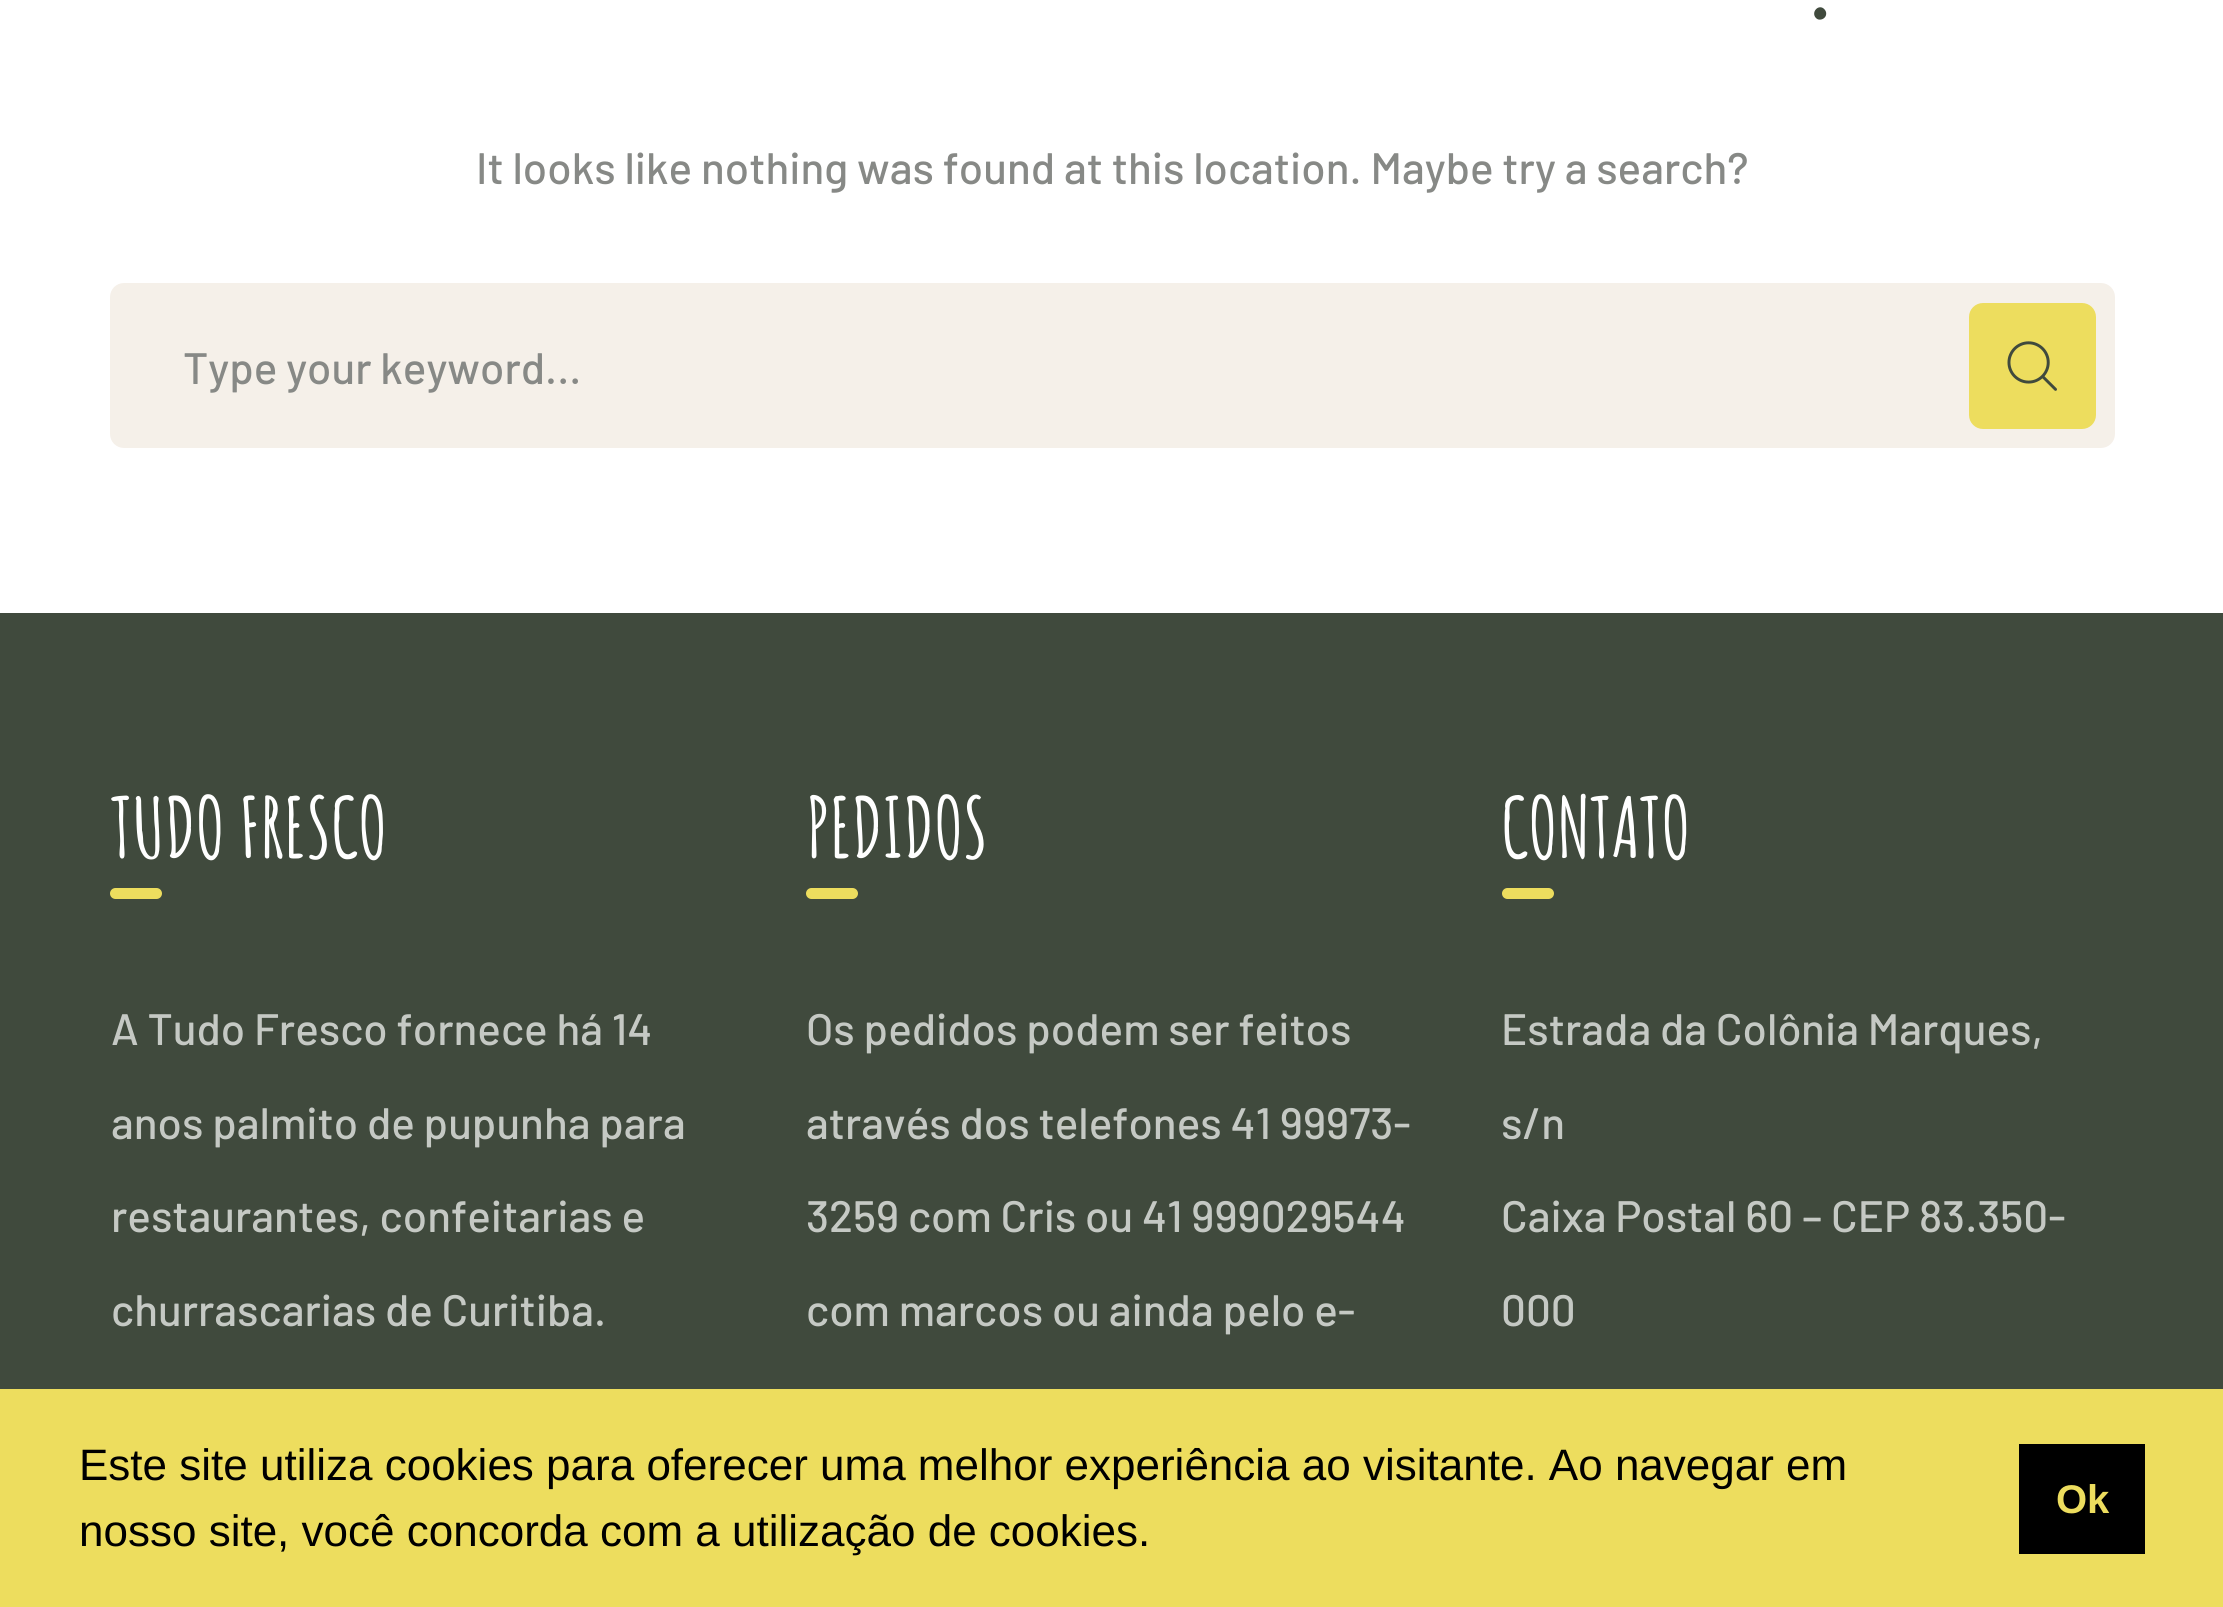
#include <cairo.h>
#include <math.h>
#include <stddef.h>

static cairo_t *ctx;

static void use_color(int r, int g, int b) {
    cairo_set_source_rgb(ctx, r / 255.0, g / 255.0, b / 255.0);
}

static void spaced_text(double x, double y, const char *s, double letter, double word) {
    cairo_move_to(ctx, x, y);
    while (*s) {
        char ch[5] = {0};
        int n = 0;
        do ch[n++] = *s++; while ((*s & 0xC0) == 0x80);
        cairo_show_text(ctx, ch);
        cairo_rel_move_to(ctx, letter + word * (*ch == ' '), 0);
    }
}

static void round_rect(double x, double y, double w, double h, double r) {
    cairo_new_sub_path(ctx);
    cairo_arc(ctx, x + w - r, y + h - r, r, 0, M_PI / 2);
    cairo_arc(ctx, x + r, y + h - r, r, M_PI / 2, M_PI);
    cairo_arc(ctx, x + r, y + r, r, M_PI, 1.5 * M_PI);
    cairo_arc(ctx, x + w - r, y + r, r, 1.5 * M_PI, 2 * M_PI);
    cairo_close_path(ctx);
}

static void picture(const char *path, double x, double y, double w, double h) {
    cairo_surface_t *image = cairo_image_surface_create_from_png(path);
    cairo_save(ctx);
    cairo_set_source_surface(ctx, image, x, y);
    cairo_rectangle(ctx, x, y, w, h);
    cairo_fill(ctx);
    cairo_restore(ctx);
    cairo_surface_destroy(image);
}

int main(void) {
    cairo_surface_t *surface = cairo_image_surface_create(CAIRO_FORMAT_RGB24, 2223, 1607);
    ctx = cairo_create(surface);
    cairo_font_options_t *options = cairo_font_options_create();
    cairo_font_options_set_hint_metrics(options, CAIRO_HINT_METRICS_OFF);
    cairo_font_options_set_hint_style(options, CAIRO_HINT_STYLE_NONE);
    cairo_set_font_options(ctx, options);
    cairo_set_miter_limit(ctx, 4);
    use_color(255, 255, 255);
    cairo_paint(ctx);
    cairo_select_font_face(ctx, "Amatic SC", CAIRO_FONT_SLANT_NORMAL, CAIRO_FONT_WEIGHT_BOLD);
    cairo_set_font_size(ctx, 165);
    use_color(64, 74, 61);
    spaced_text(1797, 17, ".", -0.5, 0);
    cairo_select_font_face(ctx, "Barlow Medium", CAIRO_FONT_SLANT_NORMAL, CAIRO_FONT_WEIGHT_NORMAL);
    cairo_set_font_size(ctx, 44);
    use_color(135, 137, 134);
    cairo_move_to(ctx, 476, 184);
    cairo_show_text(ctx, "It looks like nothing was found at this location. Maybe try a search?");
    use_color(245, 240, 233);
    round_rect(111.5, 284.5, 2002, 162, 12.5);
    cairo_fill_preserve(ctx);
    cairo_set_line_width(ctx, 3);
    cairo_stroke(ctx);
    use_color(135, 137, 134);
    cairo_move_to(ctx, 183, 384);
    cairo_show_text(ctx, "Type your keyword...");
    use_color(237, 221, 94);
    round_rect(1969, 303, 127, 126, 14);
    cairo_fill(ctx);
    picture("img1.png", 2007, 341, 50, 50);
    use_color(64, 74, 61);
    cairo_rectangle(ctx, 0, 613, 2223, 776);
    cairo_fill(ctx);
    cairo_select_font_face(ctx, "Amatic SC", CAIRO_FONT_SLANT_NORMAL, CAIRO_FONT_WEIGHT_BOLD);
    cairo_set_font_size(ctx, 82.5);
    use_color(255, 255, 255);
    spaced_text(111, 858, "TUDO FRESCO", -0.5, 0);
    use_color(237, 221, 94);
    round_rect(110, 888, 52, 11, 5.5);
    cairo_fill(ctx);
    cairo_select_font_face(ctx, "Barlow Medium", CAIRO_FONT_SLANT_NORMAL, CAIRO_FONT_WEIGHT_NORMAL);
    cairo_set_font_size(ctx, 44);
    use_color(197, 201, 196);
    cairo_move_to(ctx, 111, 1045);
    cairo_show_text(ctx, "A Tudo Fresco fornece há 14");
    cairo_move_to(ctx, 111, 1139);
    cairo_show_text(ctx, "anos palmito de pupunha para");
    cairo_move_to(ctx, 111, 1232);
    cairo_show_text(ctx, "restaurantes, confeitarias e");
    cairo_move_to(ctx, 111, 1326);
    cairo_show_text(ctx, "churrascarias de Curitiba.");
    cairo_select_font_face(ctx, "Amatic SC", CAIRO_FONT_SLANT_NORMAL, CAIRO_FONT_WEIGHT_BOLD);
    cairo_set_font_size(ctx, 82.5);
    use_color(255, 255, 255);
    spaced_text(806, 858, "PEDIDOS", -0.5, 0);
    use_color(237, 221, 94);
    round_rect(806, 888, 52, 11, 5.5);
    cairo_fill(ctx);
    cairo_select_font_face(ctx, "Barlow Medium", CAIRO_FONT_SLANT_NORMAL, CAIRO_FONT_WEIGHT_NORMAL);
    cairo_set_font_size(ctx, 44);
    use_color(197, 201, 196);
    cairo_move_to(ctx, 806, 1045);
    cairo_show_text(ctx, "Os pedidos podem ser feitos");
    cairo_move_to(ctx, 806, 1139);
    cairo_show_text(ctx, "através dos telefones 41 99973-");
    cairo_move_to(ctx, 806, 1232);
    cairo_show_text(ctx, "3259 com Cris ou 41 999029544");
    cairo_move_to(ctx, 806, 1326);
    cairo_show_text(ctx, "com marcos ou ainda pelo e-");
    cairo_select_font_face(ctx, "Amatic SC", CAIRO_FONT_SLANT_NORMAL, CAIRO_FONT_WEIGHT_BOLD);
    cairo_set_font_size(ctx, 82.5);
    use_color(255, 255, 255);
    spaced_text(1501, 858, "CONTATO", -0.5, 0);
    use_color(237, 221, 94);
    round_rect(1502, 888, 52, 11, 5.5);
    cairo_fill(ctx);
    cairo_select_font_face(ctx, "Barlow Medium", CAIRO_FONT_SLANT_NORMAL, CAIRO_FONT_WEIGHT_NORMAL);
    cairo_set_font_size(ctx, 44);
    use_color(197, 201, 196);
    cairo_move_to(ctx, 1501, 1045);
    cairo_show_text(ctx, "Estrada da Colônia Marques,");
    cairo_move_to(ctx, 1501, 1139);
    cairo_show_text(ctx, "s/n");
    cairo_move_to(ctx, 1501, 1232);
    cairo_show_text(ctx, "Caixa Postal 60 – CEP 83.350-");
    cairo_move_to(ctx, 1501, 1326);
    cairo_show_text(ctx, "000");
    use_color(237, 221, 94);
    cairo_rectangle(ctx, 0, 1389, 2223, 218);
    cairo_fill(ctx);
    cairo_select_font_face(ctx, "Liberation Sans", CAIRO_FONT_SLANT_NORMAL, CAIRO_FONT_WEIGHT_NORMAL);
    use_color(0, 0, 0);
    cairo_move_to(ctx, 79, 1480);
    cairo_show_text(ctx, "Este site utiliza cookies para oferecer uma melhor experiência ao visitante. Ao navegar em");
    cairo_move_to(ctx, 79, 1546);
    cairo_show_text(ctx, "nosso site, você concorda com a utilização de cookies.");
    cairo_rectangle(ctx, 2019, 1444, 126, 110);
    cairo_fill(ctx);
    cairo_select_font_face(ctx, "Liberation Sans", CAIRO_FONT_SLANT_NORMAL, CAIRO_FONT_WEIGHT_BOLD);
    cairo_set_font_size(ctx, 40);
    use_color(237, 221, 94);
    cairo_move_to(ctx, 2056, 1513);
    cairo_show_text(ctx, "Ok");
    cairo_surface_write_to_png(surface, "result.png");
    cairo_font_options_destroy(options);
    cairo_destroy(ctx);
    cairo_surface_destroy(surface);
    return 0;
}
